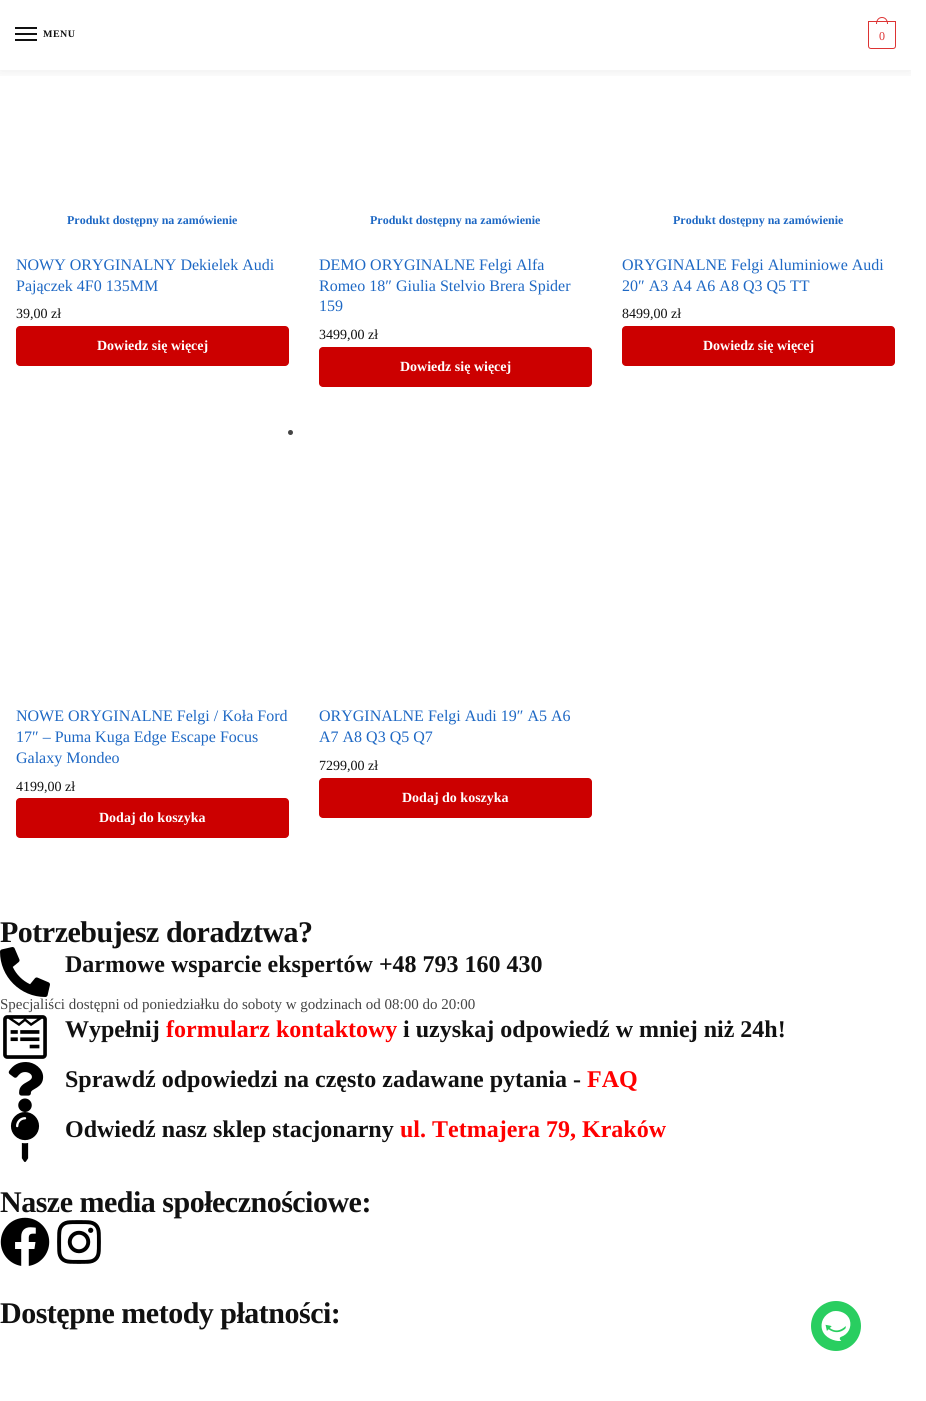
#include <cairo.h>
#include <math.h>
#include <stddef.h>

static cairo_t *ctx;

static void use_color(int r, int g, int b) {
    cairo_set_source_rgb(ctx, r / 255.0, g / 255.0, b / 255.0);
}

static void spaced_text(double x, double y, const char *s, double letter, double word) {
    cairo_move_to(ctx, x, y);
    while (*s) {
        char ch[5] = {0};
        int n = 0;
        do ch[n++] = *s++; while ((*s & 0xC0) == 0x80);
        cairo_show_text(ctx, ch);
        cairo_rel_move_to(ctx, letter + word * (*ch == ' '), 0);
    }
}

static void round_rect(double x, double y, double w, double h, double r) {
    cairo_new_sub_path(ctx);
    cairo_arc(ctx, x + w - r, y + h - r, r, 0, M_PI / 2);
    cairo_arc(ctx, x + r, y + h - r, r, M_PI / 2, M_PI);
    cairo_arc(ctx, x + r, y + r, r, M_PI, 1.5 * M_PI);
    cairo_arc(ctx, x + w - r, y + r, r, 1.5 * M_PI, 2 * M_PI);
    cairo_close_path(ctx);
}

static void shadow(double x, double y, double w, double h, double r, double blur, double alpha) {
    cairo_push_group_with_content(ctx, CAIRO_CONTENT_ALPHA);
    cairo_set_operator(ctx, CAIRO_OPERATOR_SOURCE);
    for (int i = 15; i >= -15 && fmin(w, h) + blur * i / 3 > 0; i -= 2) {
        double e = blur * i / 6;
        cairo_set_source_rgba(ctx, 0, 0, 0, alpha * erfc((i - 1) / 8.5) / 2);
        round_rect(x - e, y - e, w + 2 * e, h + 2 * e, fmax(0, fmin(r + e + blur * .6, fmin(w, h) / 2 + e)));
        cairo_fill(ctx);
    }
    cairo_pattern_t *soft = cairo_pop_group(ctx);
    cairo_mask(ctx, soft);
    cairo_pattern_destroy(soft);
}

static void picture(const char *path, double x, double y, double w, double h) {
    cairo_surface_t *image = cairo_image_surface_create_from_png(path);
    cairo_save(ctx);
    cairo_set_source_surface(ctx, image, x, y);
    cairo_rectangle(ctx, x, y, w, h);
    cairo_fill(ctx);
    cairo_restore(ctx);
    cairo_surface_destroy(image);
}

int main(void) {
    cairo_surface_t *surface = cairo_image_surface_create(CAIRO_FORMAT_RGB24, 926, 1401);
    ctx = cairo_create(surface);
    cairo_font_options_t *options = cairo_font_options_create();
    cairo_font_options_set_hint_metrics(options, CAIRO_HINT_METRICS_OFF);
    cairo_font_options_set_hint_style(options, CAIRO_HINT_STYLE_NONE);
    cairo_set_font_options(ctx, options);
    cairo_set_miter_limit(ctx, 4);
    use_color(255, 255, 255);
    cairo_paint(ctx);
    cairo_save(ctx);
    cairo_rectangle(ctx, 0, 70, 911, 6);
    cairo_clip(ctx);
    use_color(0, 0, 0);
    shadow(0, 1, 911, 70, 0, 7.5, 0.08);
    cairo_restore(ctx);
    use_color(17, 17, 17);
    cairo_rectangle(ctx, 15, 27, 22, 2);
    cairo_fill(ctx);
    cairo_rectangle(ctx, 15, 33, 22, 2);
    cairo_fill(ctx);
    cairo_select_font_face(ctx, "Liberation Serif", CAIRO_FONT_SLANT_NORMAL, CAIRO_FONT_WEIGHT_BOLD);
    cairo_set_font_size(ctx, 10);
    spaced_text(43, 37, "MENU", 0.5, 0);
    cairo_rectangle(ctx, 15, 39, 22, 2);
    cairo_fill(ctx);
    cairo_new_path(ctx);
    cairo_move_to(ctx, 868.5, 21.5);
    cairo_line_to(ctx, 895.5, 21.5);
    cairo_line_to(ctx, 895.5, 46);
    cairo_curve_to(ctx, 895.5, 47.5, 894.5, 48.5, 893, 48.5);
    cairo_line_to(ctx, 871, 48.5);
    cairo_curve_to(ctx, 869.5, 48.5, 868.5, 47.5, 868.5, 46);
    cairo_close_path(ctx);
    use_color(221, 51, 51);
    cairo_set_line_width(ctx, 1);
    cairo_stroke(ctx);
    cairo_set_fill_rule(ctx, CAIRO_FILL_RULE_EVEN_ODD);
    cairo_new_path(ctx);
    cairo_move_to(ctx, 882, 17);
    cairo_curve_to(ctx, 886, 17, 888, 20.5, 888, 24);
    cairo_line_to(ctx, 876, 24);
    cairo_curve_to(ctx, 876, 20.5, 878, 17, 882, 17);
    cairo_close_path(ctx);
    cairo_move_to(ctx, 882, 18);
    cairo_curve_to(ctx, 885.5, 18, 887, 21, 887, 24);
    cairo_line_to(ctx, 877, 24);
    cairo_curve_to(ctx, 877, 21, 878.5, 18, 882, 18);
    cairo_close_path(ctx);
    cairo_fill(ctx);
    cairo_select_font_face(ctx, "Liberation Serif", CAIRO_FONT_SLANT_NORMAL, CAIRO_FONT_WEIGHT_NORMAL);
    cairo_set_font_size(ctx, 12);
    spaced_text(879, 40, "0", -1, 0);
    use_color(255, 255, 255);
    cairo_rectangle(ctx, 911, 0, 9, 76);
    cairo_fill(ctx);
    cairo_select_font_face(ctx, "Liberation Serif", CAIRO_FONT_SLANT_NORMAL, CAIRO_FONT_WEIGHT_BOLD);
    use_color(30, 104, 196);
    cairo_move_to(ctx, 67, 224);
    cairo_show_text(ctx, "Produkt dostępny na zamówienie");
    cairo_select_font_face(ctx, "Liberation Serif", CAIRO_FONT_SLANT_NORMAL, CAIRO_FONT_WEIGHT_NORMAL);
    cairo_set_font_size(ctx, 16);
    cairo_move_to(ctx, 16, 270);
    cairo_show_text(ctx, "NOWY ORYGINALNY Dekielek Audi");
    cairo_move_to(ctx, 16, 291);
    cairo_show_text(ctx, "Pajączek 4F0 135MM");
    cairo_set_font_size(ctx, 14);
    use_color(17, 17, 17);
    cairo_move_to(ctx, 16, 318);
    cairo_show_text(ctx, "39,00 zł");
    use_color(204, 0, 0);
    round_rect(16, 326, 273, 40, 4);
    cairo_fill(ctx);
    cairo_select_font_face(ctx, "Liberation Serif", CAIRO_FONT_SLANT_NORMAL, CAIRO_FONT_WEIGHT_BOLD);
    use_color(255, 255, 255);
    cairo_move_to(ctx, 97, 350);
    cairo_show_text(ctx, "Dowiedz się więcej");
    cairo_set_font_size(ctx, 12);
    use_color(30, 104, 196);
    cairo_move_to(ctx, 370, 224);
    cairo_show_text(ctx, "Produkt dostępny na zamówienie");
    cairo_select_font_face(ctx, "Liberation Serif", CAIRO_FONT_SLANT_NORMAL, CAIRO_FONT_WEIGHT_NORMAL);
    cairo_set_font_size(ctx, 16);
    cairo_move_to(ctx, 319, 270);
    cairo_show_text(ctx, "DEMO ORYGINALNE Felgi Alfa");
    cairo_move_to(ctx, 319, 291);
    cairo_show_text(ctx, "Romeo 18″ Giulia Stelvio Brera Spider");
    cairo_move_to(ctx, 319, 311);
    cairo_show_text(ctx, "159");
    cairo_set_font_size(ctx, 14);
    use_color(17, 17, 17);
    cairo_move_to(ctx, 319, 339);
    cairo_show_text(ctx, "3499,00 zł");
    use_color(204, 0, 0);
    round_rect(319, 347, 273, 40, 4);
    cairo_fill(ctx);
    cairo_select_font_face(ctx, "Liberation Serif", CAIRO_FONT_SLANT_NORMAL, CAIRO_FONT_WEIGHT_BOLD);
    use_color(255, 255, 255);
    cairo_move_to(ctx, 400, 371);
    cairo_show_text(ctx, "Dowiedz się więcej");
    cairo_set_font_size(ctx, 12);
    use_color(30, 104, 196);
    cairo_move_to(ctx, 673, 224);
    cairo_show_text(ctx, "Produkt dostępny na zamówienie");
    cairo_select_font_face(ctx, "Liberation Serif", CAIRO_FONT_SLANT_NORMAL, CAIRO_FONT_WEIGHT_NORMAL);
    cairo_set_font_size(ctx, 16);
    cairo_move_to(ctx, 622, 270);
    cairo_show_text(ctx, "ORYGINALNE Felgi Aluminiowe Audi");
    cairo_move_to(ctx, 622, 291);
    cairo_show_text(ctx, "20″ A3 A4 A6 A8 Q3 Q5 TT");
    cairo_set_font_size(ctx, 14);
    use_color(17, 17, 17);
    cairo_move_to(ctx, 622, 318);
    cairo_show_text(ctx, "8499,00 zł");
    use_color(204, 0, 0);
    round_rect(622, 326, 273, 40, 4);
    cairo_fill(ctx);
    cairo_select_font_face(ctx, "Liberation Serif", CAIRO_FONT_SLANT_NORMAL, CAIRO_FONT_WEIGHT_BOLD);
    use_color(255, 255, 255);
    cairo_move_to(ctx, 703, 350);
    cairo_show_text(ctx, "Dowiedz się więcej");
    cairo_select_font_face(ctx, "Liberation Serif", CAIRO_FONT_SLANT_NORMAL, CAIRO_FONT_WEIGHT_NORMAL);
    cairo_set_font_size(ctx, 16);
    use_color(30, 104, 196);
    cairo_move_to(ctx, 16, 721);
    cairo_show_text(ctx, "NOWE ORYGINALNE Felgi / Koła Ford");
    cairo_move_to(ctx, 16, 742);
    cairo_show_text(ctx, "17″ – Puma Kuga Edge Escape Focus");
    cairo_move_to(ctx, 16, 763);
    cairo_show_text(ctx, "Galaxy Mondeo");
    cairo_set_font_size(ctx, 14);
    use_color(17, 17, 17);
    cairo_move_to(ctx, 16, 791);
    cairo_show_text(ctx, "4199,00 zł");
    use_color(204, 0, 0);
    round_rect(16, 798, 273, 40, 4);
    cairo_fill(ctx);
    cairo_select_font_face(ctx, "Liberation Serif", CAIRO_FONT_SLANT_NORMAL, CAIRO_FONT_WEIGHT_BOLD);
    use_color(255, 255, 255);
    cairo_move_to(ctx, 99, 822);
    cairo_show_text(ctx, "Dodaj do koszyka");
    use_color(68, 68, 68);
    cairo_new_path(ctx);
    cairo_arc(ctx, 290.5, 432.5, 2.5, 0, 2 * M_PI);
    cairo_fill(ctx);
    cairo_select_font_face(ctx, "Liberation Serif", CAIRO_FONT_SLANT_NORMAL, CAIRO_FONT_WEIGHT_NORMAL);
    cairo_set_font_size(ctx, 16);
    use_color(30, 104, 196);
    cairo_move_to(ctx, 319, 721);
    cairo_show_text(ctx, "ORYGINALNE Felgi Audi 19″ A5 A6");
    cairo_move_to(ctx, 319, 742);
    cairo_show_text(ctx, "A7 A8 Q3 Q5 Q7");
    cairo_set_font_size(ctx, 14);
    use_color(17, 17, 17);
    cairo_move_to(ctx, 319, 770);
    cairo_show_text(ctx, "7299,00 zł");
    use_color(204, 0, 0);
    round_rect(319, 778, 273, 40, 4);
    cairo_fill(ctx);
    cairo_select_font_face(ctx, "Liberation Serif", CAIRO_FONT_SLANT_NORMAL, CAIRO_FONT_WEIGHT_BOLD);
    use_color(255, 255, 255);
    cairo_move_to(ctx, 402, 802);
    cairo_show_text(ctx, "Dodaj do koszyka");
    cairo_set_font_size(ctx, 30);
    use_color(17, 17, 17);
    spaced_text(0, 942, "Potrzebujesz doradztwa?", -0.5, 0);
    picture("img1.png", 0, 947, 50, 50);
    cairo_set_font_size(ctx, 24);
    cairo_move_to(ctx, 65, 972);
    cairo_show_text(ctx, "Darmowe wsparcie ekspertów +48 793 160 430");
    cairo_select_font_face(ctx, "Liberation Serif", CAIRO_FONT_SLANT_NORMAL, CAIRO_FONT_WEIGHT_NORMAL);
    cairo_set_font_size(ctx, 15);
    use_color(68, 68, 68);
    cairo_move_to(ctx, 0, 1009);
    cairo_show_text(ctx, "Specjaliści dostępni od poniedziałku do soboty w godzinach od 08:00 do 20:00");
    picture("img2.png", 3, 1015, 44, 44);
    cairo_select_font_face(ctx, "Liberation Serif", CAIRO_FONT_SLANT_NORMAL, CAIRO_FONT_WEIGHT_BOLD);
    cairo_set_font_size(ctx, 24);
    use_color(17, 17, 17);
    cairo_move_to(ctx, 65, 1037);
    cairo_show_text(ctx, "Wypełnij");
    use_color(255, 0, 0);
    cairo_move_to(ctx, 166, 1037);
    cairo_show_text(ctx, "formularz kontaktowy");
    use_color(17, 17, 17);
    cairo_move_to(ctx, 403, 1037);
    cairo_show_text(ctx, "i uzyskaj odpowiedź w mniej niż 24h!");
    picture("img3.png", 8, 1062, 36, 50);
    cairo_move_to(ctx, 65, 1087);
    cairo_show_text(ctx, "Sprawdź odpowiedzi na często zadawane pytania -");
    use_color(255, 0, 0);
    cairo_move_to(ctx, 587, 1087);
    cairo_show_text(ctx, "FAQ");
    picture("img4.png", 10, 1112, 30, 50);
    use_color(17, 17, 17);
    cairo_move_to(ctx, 65, 1137);
    cairo_show_text(ctx, "Odwiedź nasz sklep stacjonarny");
    use_color(255, 0, 0);
    cairo_move_to(ctx, 400, 1137);
    cairo_show_text(ctx, "ul. Tetmajera 79, Kraków");
    cairo_set_font_size(ctx, 30);
    use_color(17, 17, 17);
    spaced_text(0, 1212, "Nasze media społecznościowe:", -0.5, 0);
    picture("img5.png", 0, 1217, 50, 49);
    picture("img6.png", 57, 1220, 44, 44);
    spaced_text(0, 1323, "Dostępne metody płatności:", -0.5, 0);
    use_color(41, 206, 96);
    cairo_new_path(ctx);
    cairo_arc(ctx, 836, 1326, 25, 0, 2 * M_PI);
    cairo_fill(ctx);
    picture("img7.png", 821, 1311, 30, 30);
    cairo_surface_write_to_png(surface, "result.png");
    cairo_font_options_destroy(options);
    cairo_destroy(ctx);
    cairo_surface_destroy(surface);
    return 0;
}
